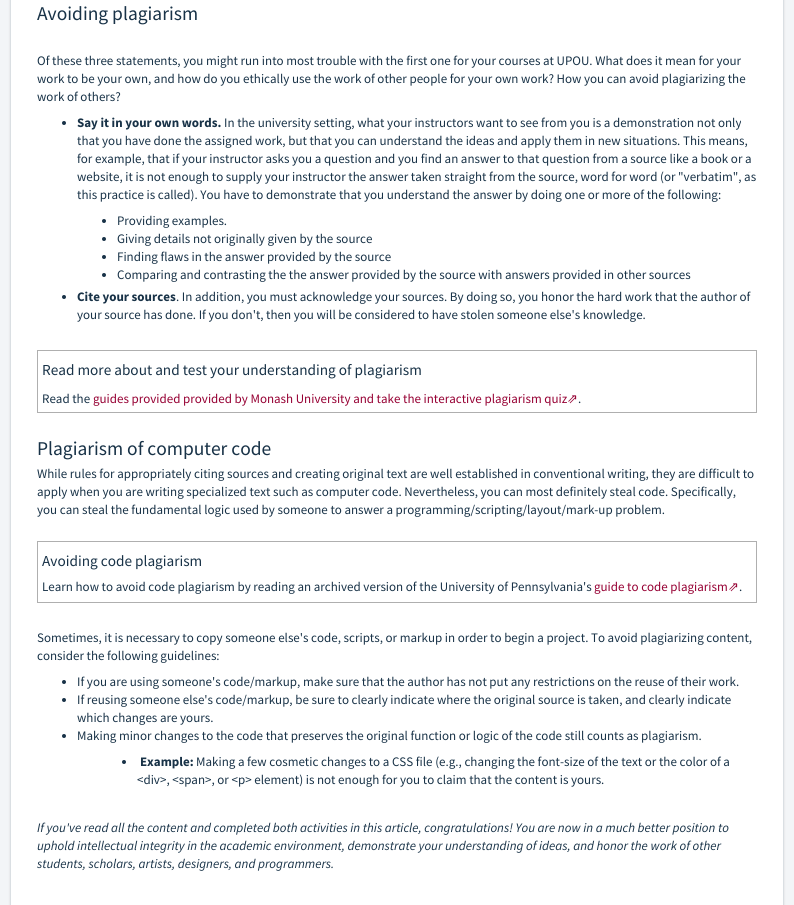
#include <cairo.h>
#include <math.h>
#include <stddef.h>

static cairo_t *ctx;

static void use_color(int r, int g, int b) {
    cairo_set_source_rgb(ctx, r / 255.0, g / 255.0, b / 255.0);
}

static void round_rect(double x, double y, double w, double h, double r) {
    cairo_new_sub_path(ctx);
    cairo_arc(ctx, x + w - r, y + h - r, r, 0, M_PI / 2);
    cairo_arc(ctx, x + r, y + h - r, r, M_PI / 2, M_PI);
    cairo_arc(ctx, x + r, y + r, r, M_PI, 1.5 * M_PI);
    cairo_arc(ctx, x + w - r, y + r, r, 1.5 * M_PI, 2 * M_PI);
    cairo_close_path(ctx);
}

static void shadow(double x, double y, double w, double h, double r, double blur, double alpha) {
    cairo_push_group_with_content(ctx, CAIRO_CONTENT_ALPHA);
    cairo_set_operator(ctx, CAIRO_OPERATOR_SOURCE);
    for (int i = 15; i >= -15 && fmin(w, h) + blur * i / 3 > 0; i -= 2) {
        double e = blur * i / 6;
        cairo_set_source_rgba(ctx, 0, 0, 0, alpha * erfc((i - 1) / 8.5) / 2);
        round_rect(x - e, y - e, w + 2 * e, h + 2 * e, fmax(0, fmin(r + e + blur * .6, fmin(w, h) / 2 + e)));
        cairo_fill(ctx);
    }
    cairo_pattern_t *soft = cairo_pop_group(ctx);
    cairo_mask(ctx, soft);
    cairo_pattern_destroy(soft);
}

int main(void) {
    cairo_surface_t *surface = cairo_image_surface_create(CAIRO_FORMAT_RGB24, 794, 905);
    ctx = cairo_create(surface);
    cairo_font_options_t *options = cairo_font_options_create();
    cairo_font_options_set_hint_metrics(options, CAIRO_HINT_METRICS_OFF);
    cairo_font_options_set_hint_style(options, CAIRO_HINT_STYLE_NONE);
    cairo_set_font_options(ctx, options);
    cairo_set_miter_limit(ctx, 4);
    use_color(243, 245, 247);
    cairo_paint(ctx);
    use_color(63, 63, 68);
    shadow(10, -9, 774, 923, 6, 1, 0.15);
    use_color(255, 255, 255);
    cairo_rectangle(ctx, 10.5, -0.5, 773, 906);
    cairo_fill_preserve(ctx);
    use_color(218, 223, 227);
    cairo_set_line_width(ctx, 1);
    cairo_stroke(ctx);
    cairo_select_font_face(ctx, "Source Sans Pro", CAIRO_FONT_SLANT_NORMAL, CAIRO_FONT_WEIGHT_NORMAL);
    cairo_set_font_size(ctx, 19.5);
    use_color(24, 50, 71);
    cairo_move_to(ctx, 37, 20);
    cairo_show_text(ctx, "Avoiding plagiarism");
    cairo_set_font_size(ctx, 13);
    cairo_move_to(ctx, 37, 65);
    cairo_show_text(ctx, "Of these three statements, you might run into most trouble with the first one for your courses at UPOU. What does it mean for your");
    cairo_move_to(ctx, 37, 83);
    cairo_show_text(ctx, "work to be your own, and how do you ethically use the work of other people for your own work? How you can avoid plagiarizing the");
    cairo_move_to(ctx, 37, 101);
    cairo_show_text(ctx, "work of others?");
    cairo_new_path(ctx);
    cairo_arc(ctx, 64, 123, 2, 0, 2 * M_PI);
    cairo_fill(ctx);
    cairo_select_font_face(ctx, "Source Sans Pro", CAIRO_FONT_SLANT_NORMAL, CAIRO_FONT_WEIGHT_BOLD);
    cairo_move_to(ctx, 77, 127);
    cairo_show_text(ctx, "Say it in your own words.");
    cairo_select_font_face(ctx, "Source Sans Pro", CAIRO_FONT_SLANT_NORMAL, CAIRO_FONT_WEIGHT_NORMAL);
    cairo_move_to(ctx, 224, 127);
    cairo_show_text(ctx, "In the university setting, what your instructors want to see from you is a demonstration not only");
    cairo_move_to(ctx, 77, 145);
    cairo_show_text(ctx, "that you have done the assigned work, but that you can understand the ideas and apply them in new situations. This means,");
    cairo_move_to(ctx, 77, 163);
    cairo_show_text(ctx, "for example, that if your instructor asks you a question and you find an answer to that question from a source like a book or a");
    cairo_move_to(ctx, 77, 181);
    cairo_show_text(ctx, "website, it is not enough to supply your instructor the answer taken straight from the source, word for word (or \"verbatim\", as");
    cairo_move_to(ctx, 77, 199);
    cairo_show_text(ctx, "this practice is called). You have to demonstrate that you understand the answer by doing one or more of the following:");
    cairo_new_path(ctx);
    cairo_arc(ctx, 104, 221, 2, 0, 2 * M_PI);
    cairo_fill(ctx);
    cairo_move_to(ctx, 117, 225);
    cairo_show_text(ctx, "Providing examples.");
    cairo_new_path(ctx);
    cairo_arc(ctx, 104, 239, 2, 0, 2 * M_PI);
    cairo_fill(ctx);
    cairo_move_to(ctx, 117, 243);
    cairo_show_text(ctx, "Giving details not originally given by the source");
    cairo_new_path(ctx);
    cairo_arc(ctx, 104, 257, 2, 0, 2 * M_PI);
    cairo_fill(ctx);
    cairo_move_to(ctx, 117, 261);
    cairo_show_text(ctx, "Finding flaws in the answer provided by the source");
    cairo_new_path(ctx);
    cairo_arc(ctx, 104, 275, 2, 0, 2 * M_PI);
    cairo_fill(ctx);
    cairo_move_to(ctx, 117, 279);
    cairo_show_text(ctx, "Comparing and contrasting the the answer provided by the source with answers provided in other sources");
    cairo_new_path(ctx);
    cairo_arc(ctx, 64, 297, 2, 0, 2 * M_PI);
    cairo_fill(ctx);
    cairo_select_font_face(ctx, "Source Sans Pro", CAIRO_FONT_SLANT_NORMAL, CAIRO_FONT_WEIGHT_BOLD);
    cairo_move_to(ctx, 77, 301);
    cairo_show_text(ctx, "Cite your sources");
    cairo_select_font_face(ctx, "Source Sans Pro", CAIRO_FONT_SLANT_NORMAL, CAIRO_FONT_WEIGHT_NORMAL);
    cairo_move_to(ctx, 176, 301);
    cairo_show_text(ctx, ". In addition, you must acknowledge your sources. By doing so, you honor the hard work that the author of");
    cairo_move_to(ctx, 77, 319);
    cairo_show_text(ctx, "your source has done. If you don't, then you will be considered to have stolen someone else's knowledge.");
    use_color(175, 175, 175);
    cairo_rectangle(ctx, 37, 350, 720, 1);
    cairo_fill(ctx);
    cairo_rectangle(ctx, 756, 350, 1, 63);
    cairo_fill(ctx);
    cairo_rectangle(ctx, 37, 412, 720, 1);
    cairo_fill(ctx);
    cairo_rectangle(ctx, 37, 350, 1, 63);
    cairo_fill(ctx);
    cairo_set_font_size(ctx, 15.25);
    use_color(24, 50, 71);
    cairo_move_to(ctx, 42, 375);
    cairo_show_text(ctx, "Read more about and test your understanding of plagiarism");
    cairo_set_font_size(ctx, 13);
    cairo_move_to(ctx, 42, 403);
    cairo_show_text(ctx, "Read the");
    use_color(150, 0, 51);
    cairo_move_to(ctx, 93, 403);
    cairo_show_text(ctx, "guides provided provided by Monash University and take the interactive plagiarism quiz");
    cairo_select_font_face(ctx, "DejaVu Sans", CAIRO_FONT_SLANT_NORMAL, CAIRO_FONT_WEIGHT_NORMAL);
    cairo_move_to(ctx, 567, 403);
    cairo_show_text(ctx, "⇗");
    cairo_select_font_face(ctx, "Source Sans Pro", CAIRO_FONT_SLANT_NORMAL, CAIRO_FONT_WEIGHT_NORMAL);
    use_color(24, 50, 71);
    cairo_move_to(ctx, 578, 403);
    cairo_show_text(ctx, ".");
    cairo_set_font_size(ctx, 19.5);
    cairo_move_to(ctx, 37, 455);
    cairo_show_text(ctx, "Plagiarism of computer code");
    cairo_set_font_size(ctx, 13);
    cairo_move_to(ctx, 37, 478);
    cairo_show_text(ctx, "While rules for appropriately citing sources and creating original text are well established in conventional writing, they are difficult to");
    cairo_move_to(ctx, 37, 496);
    cairo_show_text(ctx, "apply when you are writing specialized text such as computer code. Nevertheless, you can most definitely steal code. Specifically,");
    cairo_move_to(ctx, 37, 514);
    cairo_show_text(ctx, "you can steal the fundamental logic used by someone to answer a programming/scripting/layout/mark-up problem.");
    use_color(175, 175, 175);
    cairo_rectangle(ctx, 37, 541, 720, 1);
    cairo_fill(ctx);
    cairo_rectangle(ctx, 756, 541, 1, 62);
    cairo_fill(ctx);
    cairo_rectangle(ctx, 37, 602, 720, 1);
    cairo_fill(ctx);
    cairo_rectangle(ctx, 37, 541, 1, 62);
    cairo_fill(ctx);
    cairo_set_font_size(ctx, 15.25);
    use_color(24, 50, 71);
    cairo_move_to(ctx, 42, 566);
    cairo_show_text(ctx, "Avoiding code plagiarism");
    cairo_set_font_size(ctx, 13);
    cairo_move_to(ctx, 42, 591);
    cairo_show_text(ctx, "Learn how to avoid code plagiarism by reading an archived version of the University of Pennsylvania's");
    use_color(150, 0, 51);
    cairo_move_to(ctx, 594, 591);
    cairo_show_text(ctx, "guide to code plagiarism");
    cairo_select_font_face(ctx, "DejaVu Sans", CAIRO_FONT_SLANT_NORMAL, CAIRO_FONT_WEIGHT_NORMAL);
    cairo_move_to(ctx, 728, 591);
    cairo_show_text(ctx, "⇗");
    cairo_select_font_face(ctx, "Source Sans Pro", CAIRO_FONT_SLANT_NORMAL, CAIRO_FONT_WEIGHT_NORMAL);
    use_color(24, 50, 71);
    cairo_move_to(ctx, 739, 591);
    cairo_show_text(ctx, ".");
    cairo_move_to(ctx, 37, 642);
    cairo_show_text(ctx, "Sometimes, it is necessary to copy someone else's code, scripts, or markup in order to begin a project. To avoid plagiarizing content,");
    cairo_move_to(ctx, 37, 660);
    cairo_show_text(ctx, "consider the following guidelines:");
    cairo_new_path(ctx);
    cairo_arc(ctx, 64, 682, 2, 0, 2 * M_PI);
    cairo_fill(ctx);
    cairo_move_to(ctx, 77, 686);
    cairo_show_text(ctx, "If you are using someone's code/markup, make sure that the author has not put any restrictions on the reuse of their work.");
    cairo_new_path(ctx);
    cairo_arc(ctx, 64, 700, 2, 0, 2 * M_PI);
    cairo_fill(ctx);
    cairo_move_to(ctx, 77, 704);
    cairo_show_text(ctx, "If reusing someone else's code/markup, be sure to clearly indicate where the original source is taken, and clearly indicate");
    cairo_move_to(ctx, 77, 722);
    cairo_show_text(ctx, "which changes are yours.");
    cairo_new_path(ctx);
    cairo_arc(ctx, 64, 736, 2, 0, 2 * M_PI);
    cairo_fill(ctx);
    cairo_move_to(ctx, 77, 740);
    cairo_show_text(ctx, "Making minor changes to the code that preserves the original function or logic of the code still counts as plagiarism.");
    cairo_new_path(ctx);
    cairo_arc(ctx, 124, 762, 2, 0, 2 * M_PI);
    cairo_fill(ctx);
    cairo_select_font_face(ctx, "Source Sans Pro", CAIRO_FONT_SLANT_NORMAL, CAIRO_FONT_WEIGHT_BOLD);
    cairo_move_to(ctx, 140, 766);
    cairo_show_text(ctx, "Example:");
    cairo_select_font_face(ctx, "Source Sans Pro", CAIRO_FONT_SLANT_NORMAL, CAIRO_FONT_WEIGHT_NORMAL);
    cairo_move_to(ctx, 196, 766);
    cairo_show_text(ctx, "Making a few cosmetic changes to a CSS file (e.g., changing the font-size of the text or the color of a");
    cairo_move_to(ctx, 137, 784);
    cairo_show_text(ctx, "<div>, <span>, or <p> element) is not enough for you to claim that the content is yours.");
    cairo_select_font_face(ctx, "Source Sans Pro", CAIRO_FONT_SLANT_ITALIC, CAIRO_FONT_WEIGHT_NORMAL);
    cairo_move_to(ctx, 37, 832);
    cairo_show_text(ctx, "If you've read all the content and completed both activities in this article, congratulations! You are now in a much better position to");
    cairo_move_to(ctx, 37, 850);
    cairo_show_text(ctx, "uphold intellectual integrity in the academic environment, demonstrate your understanding of ideas, and honor the work of other");
    cairo_move_to(ctx, 37, 868);
    cairo_show_text(ctx, "students, scholars, artists, designers, and programmers.");
    cairo_surface_write_to_png(surface, "result.png");
    cairo_font_options_destroy(options);
    cairo_destroy(ctx);
    cairo_surface_destroy(surface);
    return 0;
}
